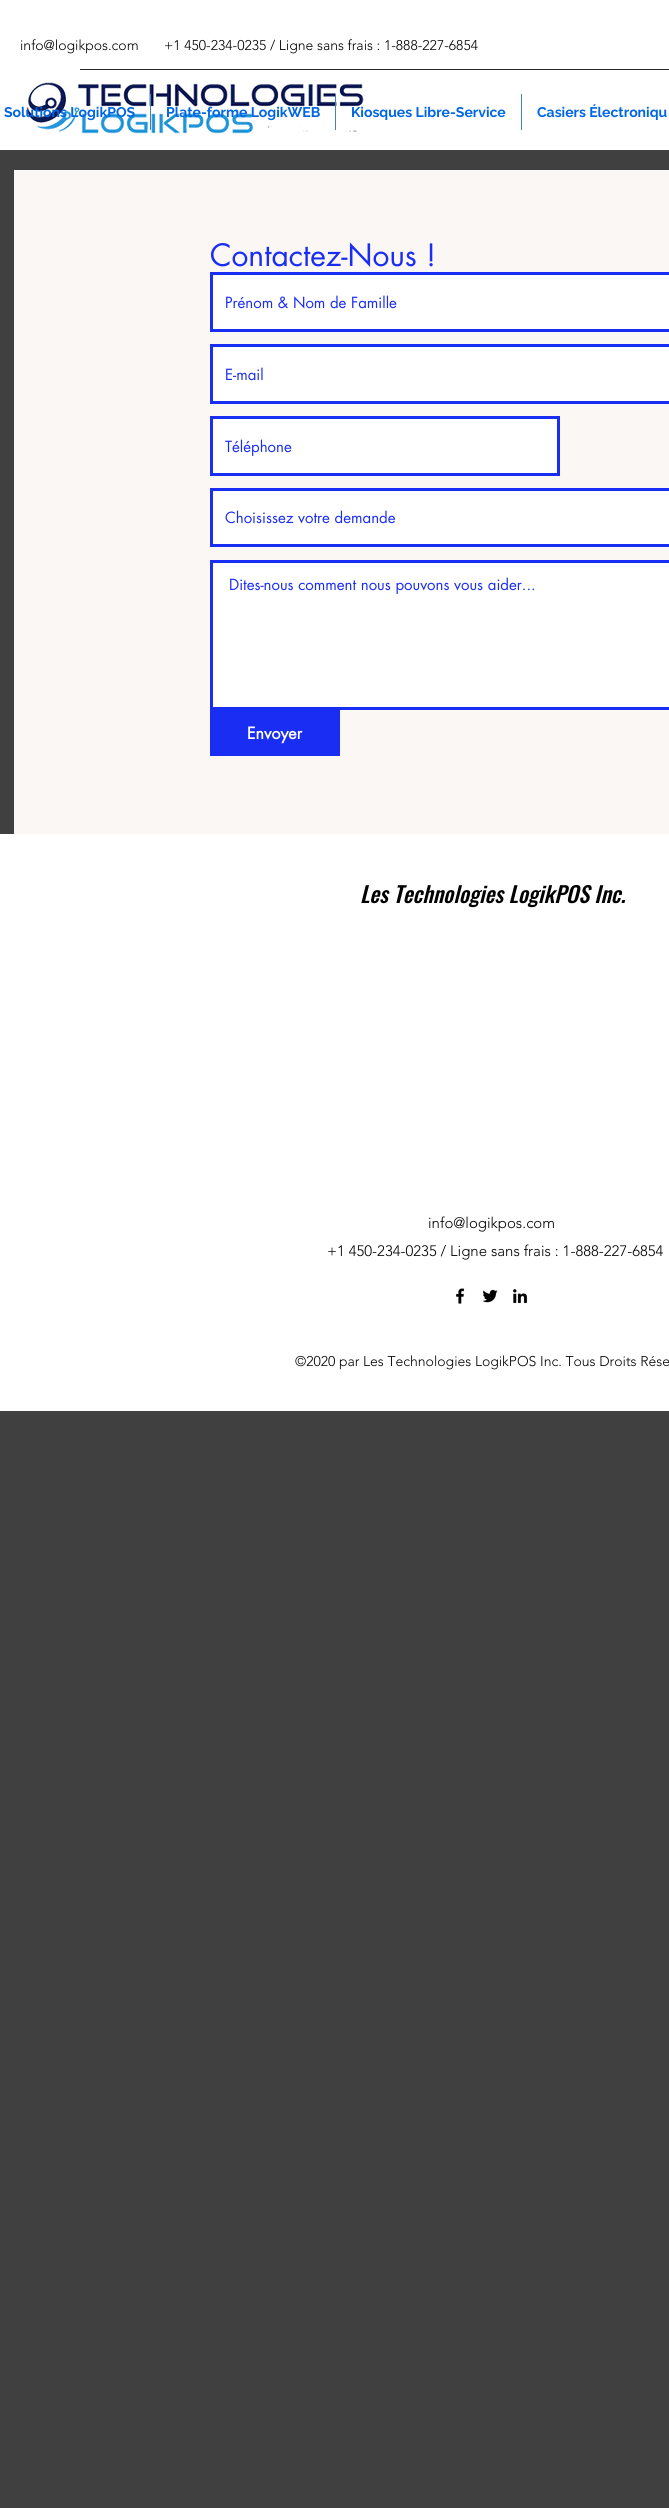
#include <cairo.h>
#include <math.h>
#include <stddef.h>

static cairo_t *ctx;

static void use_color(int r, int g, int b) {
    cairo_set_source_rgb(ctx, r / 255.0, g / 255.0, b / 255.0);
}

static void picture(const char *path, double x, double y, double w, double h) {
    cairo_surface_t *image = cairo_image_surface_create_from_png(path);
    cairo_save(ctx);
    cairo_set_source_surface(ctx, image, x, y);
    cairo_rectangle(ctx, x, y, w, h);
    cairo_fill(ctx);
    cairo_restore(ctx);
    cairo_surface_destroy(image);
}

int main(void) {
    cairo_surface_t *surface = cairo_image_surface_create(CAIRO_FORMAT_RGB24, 669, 2508);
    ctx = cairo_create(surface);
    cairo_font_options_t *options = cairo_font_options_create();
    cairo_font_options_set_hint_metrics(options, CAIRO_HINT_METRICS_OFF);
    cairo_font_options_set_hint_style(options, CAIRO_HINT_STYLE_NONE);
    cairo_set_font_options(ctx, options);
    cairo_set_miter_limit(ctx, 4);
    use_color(64, 64, 64);
    cairo_paint(ctx);
    use_color(255, 255, 255);
    cairo_rectangle(ctx, 0, 0, 669, 150);
    cairo_fill(ctx);
    cairo_select_font_face(ctx, "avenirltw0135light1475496 Light", CAIRO_FONT_SLANT_NORMAL, CAIRO_FONT_WEIGHT_NORMAL);
    cairo_set_font_size(ctx, 14);
    use_color(0, 0, 0);
    cairo_move_to(ctx, 20, 50);
    cairo_show_text(ctx, "info@logikpos.com");
    cairo_move_to(ctx, 164, 50);
    cairo_show_text(ctx, "+1 450-234-0235 / Ligne sans frais : 1-888-227-6854");
    use_color(38, 38, 38);
    cairo_rectangle(ctx, 80, 69, 589, 1);
    cairo_fill(ctx);
    picture("img1.png", 26, 82, 338, 52);
    cairo_select_font_face(ctx, "Raleway", CAIRO_FONT_SLANT_NORMAL, CAIRO_FONT_WEIGHT_BOLD);
    use_color(0, 102, 227);
    cairo_move_to(ctx, 4, 117);
    cairo_show_text(ctx, "Solutions LogikPOS");
    use_color(70, 130, 180);
    cairo_rectangle(ctx, 150, 94, 1, 36);
    cairo_fill(ctx);
    use_color(0, 102, 227);
    cairo_move_to(ctx, 166, 117);
    cairo_show_text(ctx, "Plate-forme LogikWEB");
    use_color(70, 130, 180);
    cairo_rectangle(ctx, 335, 94, 1, 36);
    cairo_fill(ctx);
    use_color(0, 102, 227);
    cairo_move_to(ctx, 351, 117);
    cairo_show_text(ctx, "Kiosques Libre-Service");
    use_color(70, 130, 180);
    cairo_rectangle(ctx, 521, 94, 1, 36);
    cairo_fill(ctx);
    use_color(0, 102, 227);
    cairo_move_to(ctx, 537, 117);
    cairo_show_text(ctx, "Casiers Électroniqu");
    use_color(250, 247, 245);
    cairo_rectangle(ctx, 14, 170, 655, 664);
    cairo_fill(ctx);
    cairo_select_font_face(ctx, "futura", CAIRO_FONT_SLANT_NORMAL, CAIRO_FONT_WEIGHT_NORMAL);
    cairo_set_font_size(ctx, 30);
    use_color(26, 45, 243);
    cairo_move_to(ctx, 210, 266);
    cairo_show_text(ctx, "Contactez-Nous !");
    use_color(255, 255, 255);
    cairo_rectangle(ctx, 211.5, 273.5, 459, 57);
    cairo_fill_preserve(ctx);
    use_color(26, 45, 243);
    cairo_set_line_width(ctx, 3);
    cairo_stroke(ctx);
    cairo_set_font_size(ctx, 15);
    cairo_move_to(ctx, 225, 308);
    cairo_show_text(ctx, "Prénom & Nom de Famille");
    use_color(255, 255, 255);
    cairo_rectangle(ctx, 211.5, 345.5, 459, 57);
    cairo_fill_preserve(ctx);
    use_color(26, 45, 243);
    cairo_stroke(ctx);
    cairo_move_to(ctx, 225, 380);
    cairo_show_text(ctx, "E-mail");
    use_color(255, 255, 255);
    cairo_rectangle(ctx, 211.5, 417.5, 347, 57);
    cairo_fill_preserve(ctx);
    use_color(26, 45, 243);
    cairo_stroke(ctx);
    cairo_move_to(ctx, 225, 452);
    cairo_show_text(ctx, "Téléphone");
    use_color(255, 255, 255);
    cairo_rectangle(ctx, 211.5, 489.5, 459, 56);
    cairo_fill_preserve(ctx);
    use_color(26, 45, 243);
    cairo_stroke(ctx);
    cairo_move_to(ctx, 225, 523);
    cairo_show_text(ctx, "Choisissez votre demande");
    use_color(255, 255, 255);
    cairo_rectangle(ctx, 211.5, 561.5, 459, 147);
    cairo_fill_preserve(ctx);
    use_color(26, 45, 243);
    cairo_stroke(ctx);
    cairo_move_to(ctx, 229, 590);
    cairo_show_text(ctx, "Dites-nous comment nous pouvons vous aider...");
    cairo_rectangle(ctx, 210, 710, 130, 46);
    cairo_fill(ctx);
    cairo_select_font_face(ctx, "futura", CAIRO_FONT_SLANT_NORMAL, CAIRO_FONT_WEIGHT_BOLD);
    cairo_set_font_size(ctx, 16);
    use_color(255, 255, 255);
    cairo_move_to(ctx, 247, 739);
    cairo_show_text(ctx, "Envoyer");
    cairo_rectangle(ctx, 0, 834, 669, 577);
    cairo_fill(ctx);
    cairo_select_font_face(ctx, "Oswald Medium", CAIRO_FONT_SLANT_ITALIC, CAIRO_FONT_WEIGHT_NORMAL);
    cairo_set_font_size(ctx, 22);
    use_color(0, 0, 0);
    cairo_move_to(ctx, 360, 903);
    cairo_show_text(ctx, "Les Technologies LogikPOS Inc.");
    cairo_select_font_face(ctx, "avenirltw0135light1475496 Light", CAIRO_FONT_SLANT_NORMAL, CAIRO_FONT_WEIGHT_NORMAL);
    cairo_set_font_size(ctx, 15);
    cairo_move_to(ctx, 428, 1228);
    cairo_show_text(ctx, "info@logikpos.com");
    cairo_move_to(ctx, 327, 1256);
    cairo_show_text(ctx, "+1 450-234-0235 / Ligne sans frais : 1-888-227-6854");
    picture("img2.png", 456, 1288, 9, 16);
    picture("img3.png", 482, 1289, 16, 14);
    picture("img4.png", 513, 1289, 15, 15);
    cairo_set_font_size(ctx, 14);
    cairo_move_to(ctx, 295, 1366);
    cairo_show_text(ctx, "©2020 par Les Technologies LogikPOS Inc. Tous Droits Rése");
    cairo_surface_write_to_png(surface, "result.png");
    cairo_font_options_destroy(options);
    cairo_destroy(ctx);
    cairo_surface_destroy(surface);
    return 0;
}
